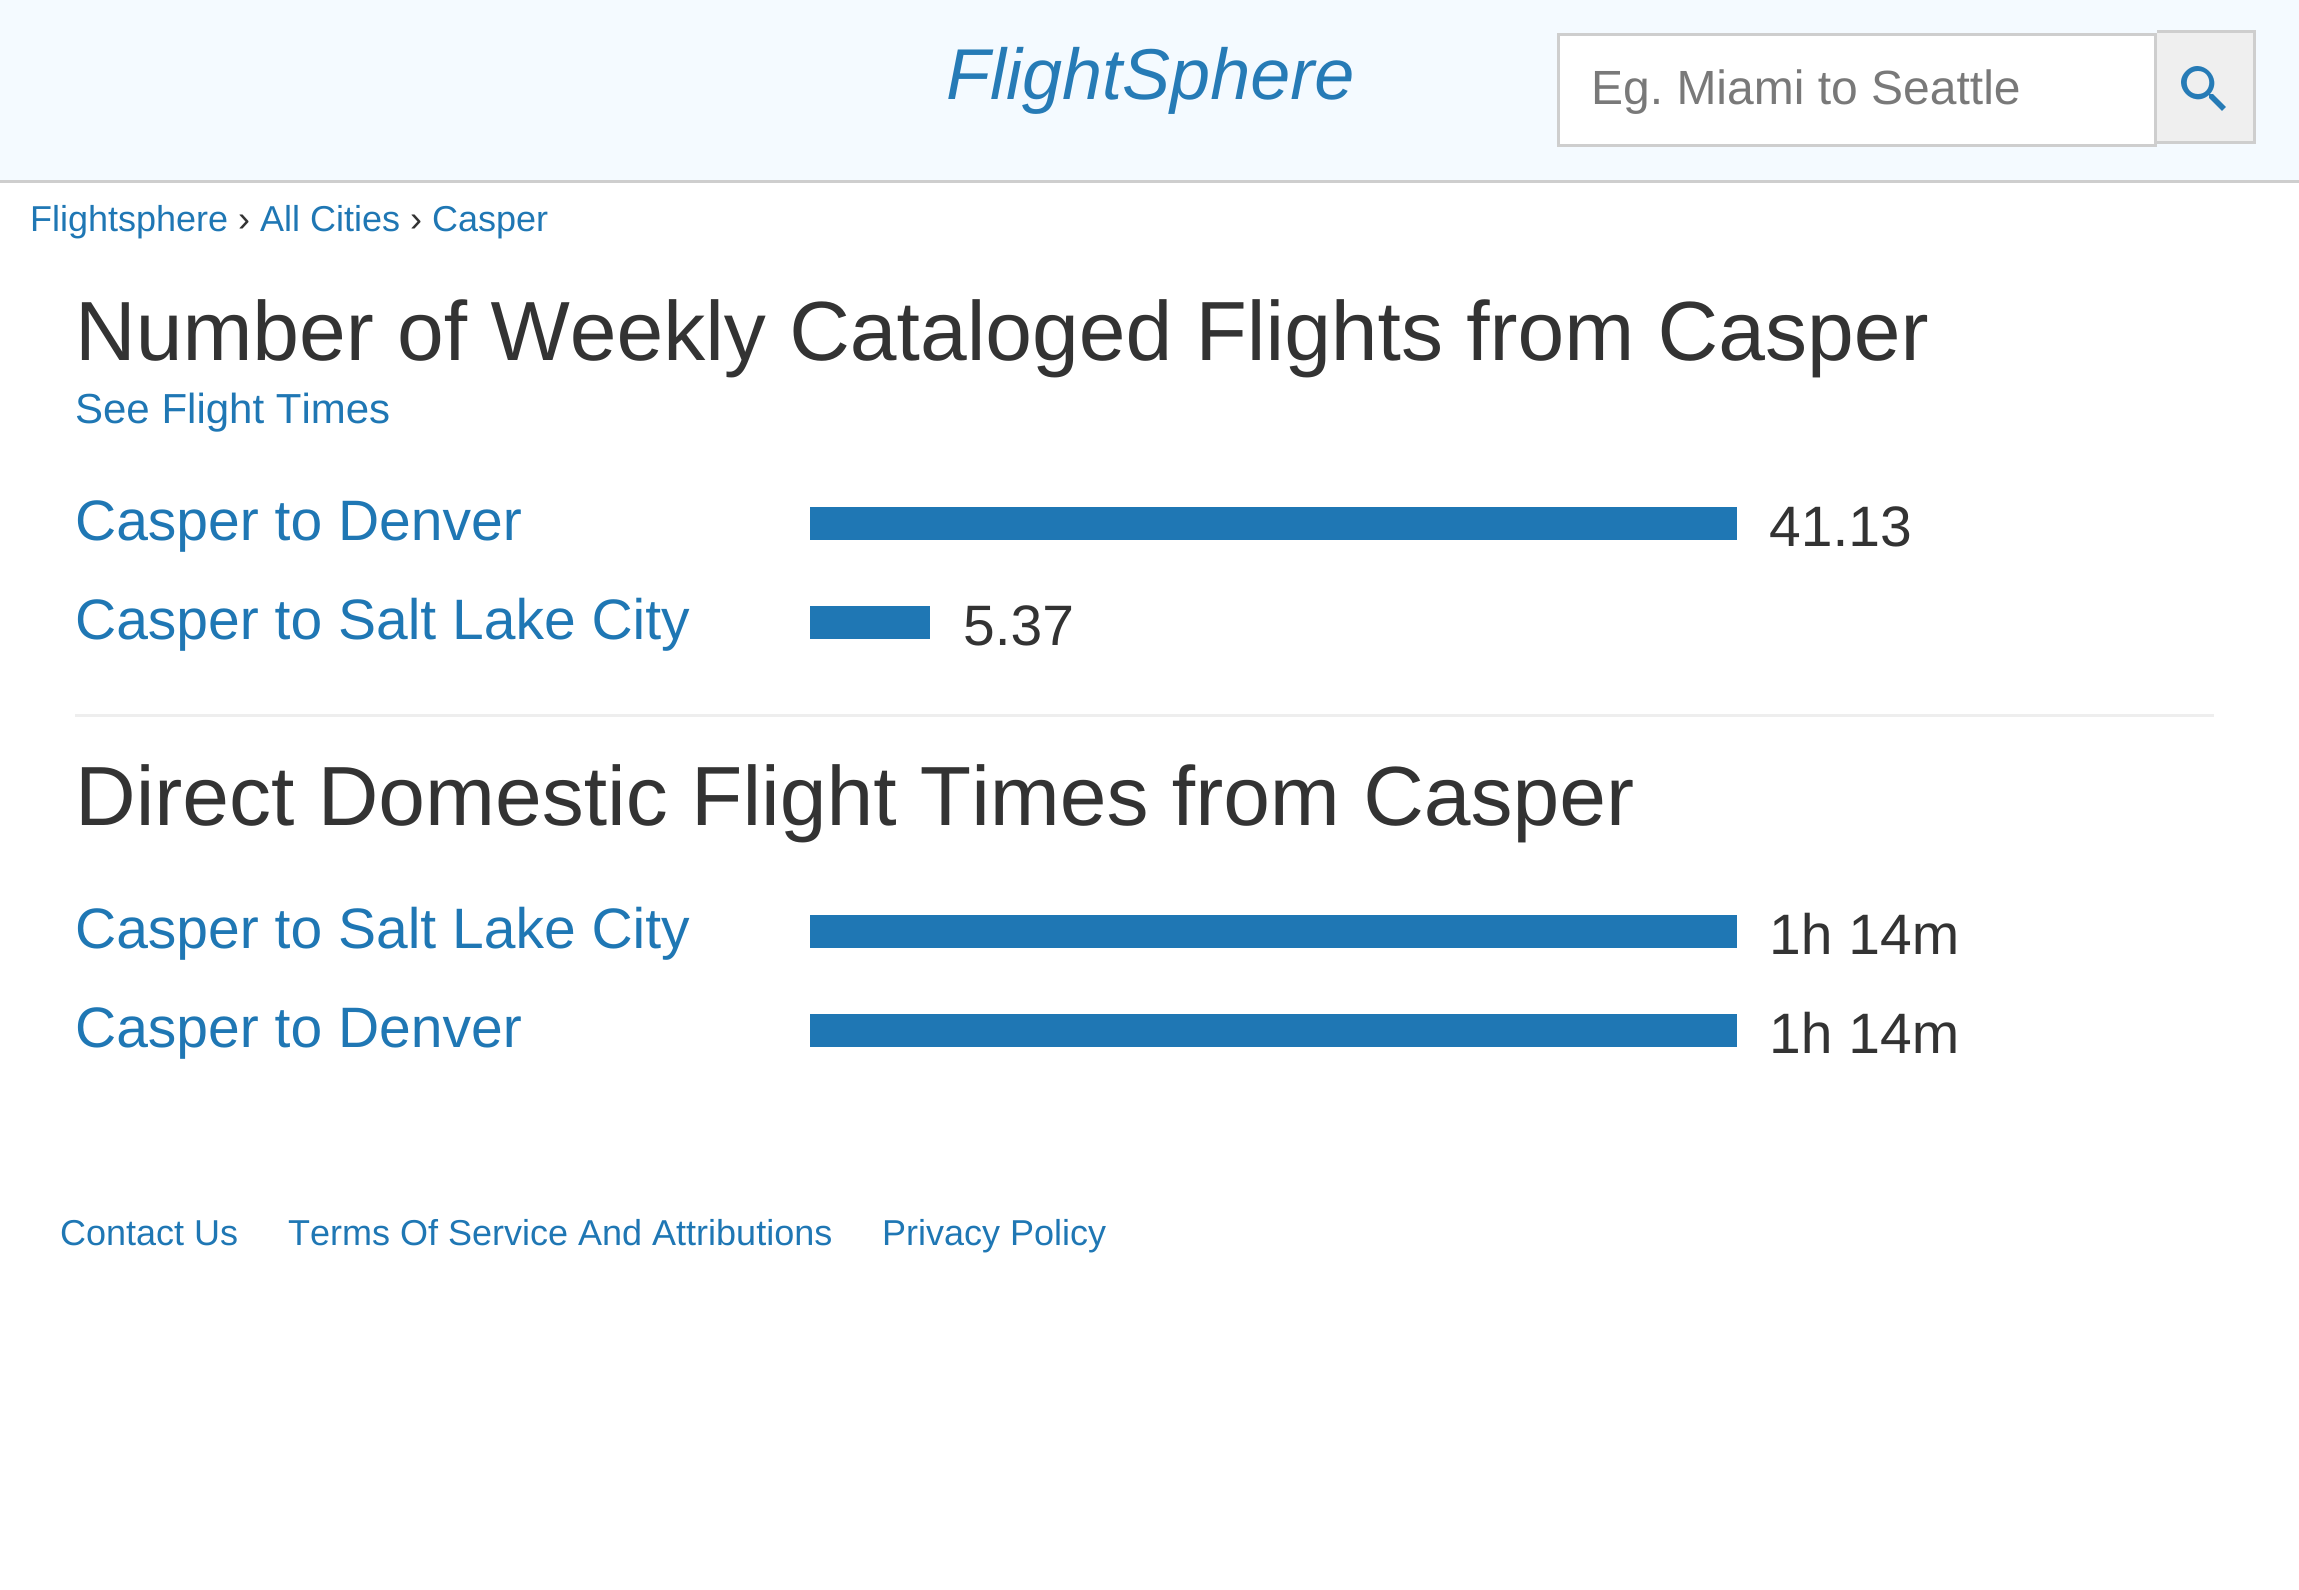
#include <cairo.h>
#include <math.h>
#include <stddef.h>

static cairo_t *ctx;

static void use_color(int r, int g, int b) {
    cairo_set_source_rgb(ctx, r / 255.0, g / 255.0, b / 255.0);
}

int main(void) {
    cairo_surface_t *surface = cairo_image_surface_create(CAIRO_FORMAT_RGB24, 2299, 1590);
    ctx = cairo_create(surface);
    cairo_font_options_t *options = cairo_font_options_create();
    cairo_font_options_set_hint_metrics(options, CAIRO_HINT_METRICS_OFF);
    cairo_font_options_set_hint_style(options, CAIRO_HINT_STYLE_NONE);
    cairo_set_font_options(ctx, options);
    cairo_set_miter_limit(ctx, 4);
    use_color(255, 255, 255);
    cairo_paint(ctx);
    use_color(244, 250, 255);
    cairo_rectangle(ctx, 0, 0, 2299, 180);
    cairo_fill(ctx);
    use_color(206, 206, 206);
    cairo_rectangle(ctx, 0, 180, 2299, 3);
    cairo_fill(ctx);
    cairo_select_font_face(ctx, "Liberation Sans", CAIRO_FONT_SLANT_ITALIC, CAIRO_FONT_WEIGHT_NORMAL);
    cairo_set_font_size(ctx, 72);
    use_color(38, 123, 182);
    cairo_move_to(ctx, 946, 99);
    cairo_show_text(ctx, "FlightSphere");
    use_color(255, 255, 255);
    cairo_rectangle(ctx, 1558.5, 34.5, 597, 111);
    cairo_fill_preserve(ctx);
    use_color(206, 206, 206);
    cairo_set_line_width(ctx, 3);
    cairo_stroke(ctx);
    cairo_select_font_face(ctx, "Liberation Sans", CAIRO_FONT_SLANT_NORMAL, CAIRO_FONT_WEIGHT_NORMAL);
    cairo_set_font_size(ctx, 48);
    use_color(121, 121, 121);
    cairo_move_to(ctx, 1591, 104);
    cairo_show_text(ctx, "Eg. Miami to Seattle");
    use_color(239, 239, 239);
    cairo_rectangle(ctx, 2157, 33, 96, 108);
    cairo_fill(ctx);
    use_color(38, 123, 182);
    cairo_set_fill_rule(ctx, CAIRO_FILL_RULE_EVEN_ODD);
    cairo_new_path(ctx);
    cairo_move_to(ctx, 2213, 94);
    cairo_line_to(ctx, 2211, 94);
    cairo_line_to(ctx, 2210, 94);
    cairo_curve_to(ctx, 2224, 78, 2201, 56, 2186, 71);
    cairo_curve_to(ctx, 2171, 86, 2193, 109, 2209, 95);
    cairo_line_to(ctx, 2209, 96);
    cairo_line_to(ctx, 2209, 98);
    cairo_line_to(ctx, 2222, 111);
    cairo_line_to(ctx, 2226, 107);
    cairo_close_path(ctx);
    cairo_move_to(ctx, 2198, 94);
    cairo_curve_to(ctx, 2183, 94, 2183, 71, 2198, 71);
    cairo_curve_to(ctx, 2213, 71, 2213, 94, 2198, 94);
    cairo_close_path(ctx);
    cairo_fill(ctx);
    use_color(206, 206, 206);
    cairo_rectangle(ctx, 2157, 30, 99, 3);
    cairo_fill(ctx);
    cairo_rectangle(ctx, 2253, 30, 3, 114);
    cairo_fill(ctx);
    cairo_rectangle(ctx, 2157, 141, 99, 3);
    cairo_fill(ctx);
    cairo_set_font_size(ctx, 36);
    use_color(31, 119, 180);
    cairo_move_to(ctx, 30, 231);
    cairo_show_text(ctx, "Flightsphere");
    use_color(51, 51, 51);
    cairo_move_to(ctx, 238, 231);
    cairo_show_text(ctx, "›");
    use_color(31, 119, 180);
    cairo_move_to(ctx, 260, 231);
    cairo_show_text(ctx, "All Cities");
    use_color(51, 51, 51);
    cairo_move_to(ctx, 410, 231);
    cairo_show_text(ctx, "›");
    use_color(31, 119, 180);
    cairo_move_to(ctx, 432, 231);
    cairo_show_text(ctx, "Casper");
    cairo_set_font_size(ctx, 84);
    use_color(51, 51, 51);
    cairo_move_to(ctx, 75, 360);
    cairo_show_text(ctx, "Number of Weekly Cataloged Flights from Casper");
    cairo_set_font_size(ctx, 42);
    use_color(31, 119, 180);
    cairo_move_to(ctx, 75, 423);
    cairo_show_text(ctx, "See Flight Times");
    cairo_set_font_size(ctx, 57);
    cairo_move_to(ctx, 75, 540);
    cairo_show_text(ctx, "Casper to Denver");
    cairo_rectangle(ctx, 810, 507, 927, 33);
    cairo_fill(ctx);
    use_color(51, 51, 51);
    cairo_move_to(ctx, 1769, 546);
    cairo_show_text(ctx, "41.13");
    use_color(31, 119, 180);
    cairo_move_to(ctx, 75, 639);
    cairo_show_text(ctx, "Casper to Salt Lake City");
    cairo_rectangle(ctx, 810, 606, 120, 33);
    cairo_fill(ctx);
    use_color(51, 51, 51);
    cairo_move_to(ctx, 963, 645);
    cairo_show_text(ctx, "5.37");
    use_color(238, 238, 238);
    cairo_rectangle(ctx, 75, 714, 2139, 3);
    cairo_fill(ctx);
    cairo_set_font_size(ctx, 84);
    use_color(51, 51, 51);
    cairo_move_to(ctx, 75, 825);
    cairo_show_text(ctx, "Direct Domestic Flight Times from Casper");
    cairo_set_font_size(ctx, 57);
    use_color(31, 119, 180);
    cairo_move_to(ctx, 75, 948);
    cairo_show_text(ctx, "Casper to Salt Lake City");
    cairo_rectangle(ctx, 810, 915, 927, 33);
    cairo_fill(ctx);
    use_color(51, 51, 51);
    cairo_move_to(ctx, 1769, 954);
    cairo_show_text(ctx, "1h 14m");
    use_color(31, 119, 180);
    cairo_move_to(ctx, 75, 1047);
    cairo_show_text(ctx, "Casper to Denver");
    cairo_rectangle(ctx, 810, 1014, 927, 33);
    cairo_fill(ctx);
    use_color(51, 51, 51);
    cairo_move_to(ctx, 1769, 1053);
    cairo_show_text(ctx, "1h 14m");
    cairo_set_font_size(ctx, 36);
    use_color(31, 119, 180);
    cairo_move_to(ctx, 60, 1245);
    cairo_show_text(ctx, "Contact Us");
    cairo_move_to(ctx, 288, 1245);
    cairo_show_text(ctx, "Terms Of Service And Attributions");
    cairo_move_to(ctx, 882, 1245);
    cairo_show_text(ctx, "Privacy Policy");
    cairo_surface_write_to_png(surface, "result.png");
    cairo_font_options_destroy(options);
    cairo_destroy(ctx);
    cairo_surface_destroy(surface);
    return 0;
}
